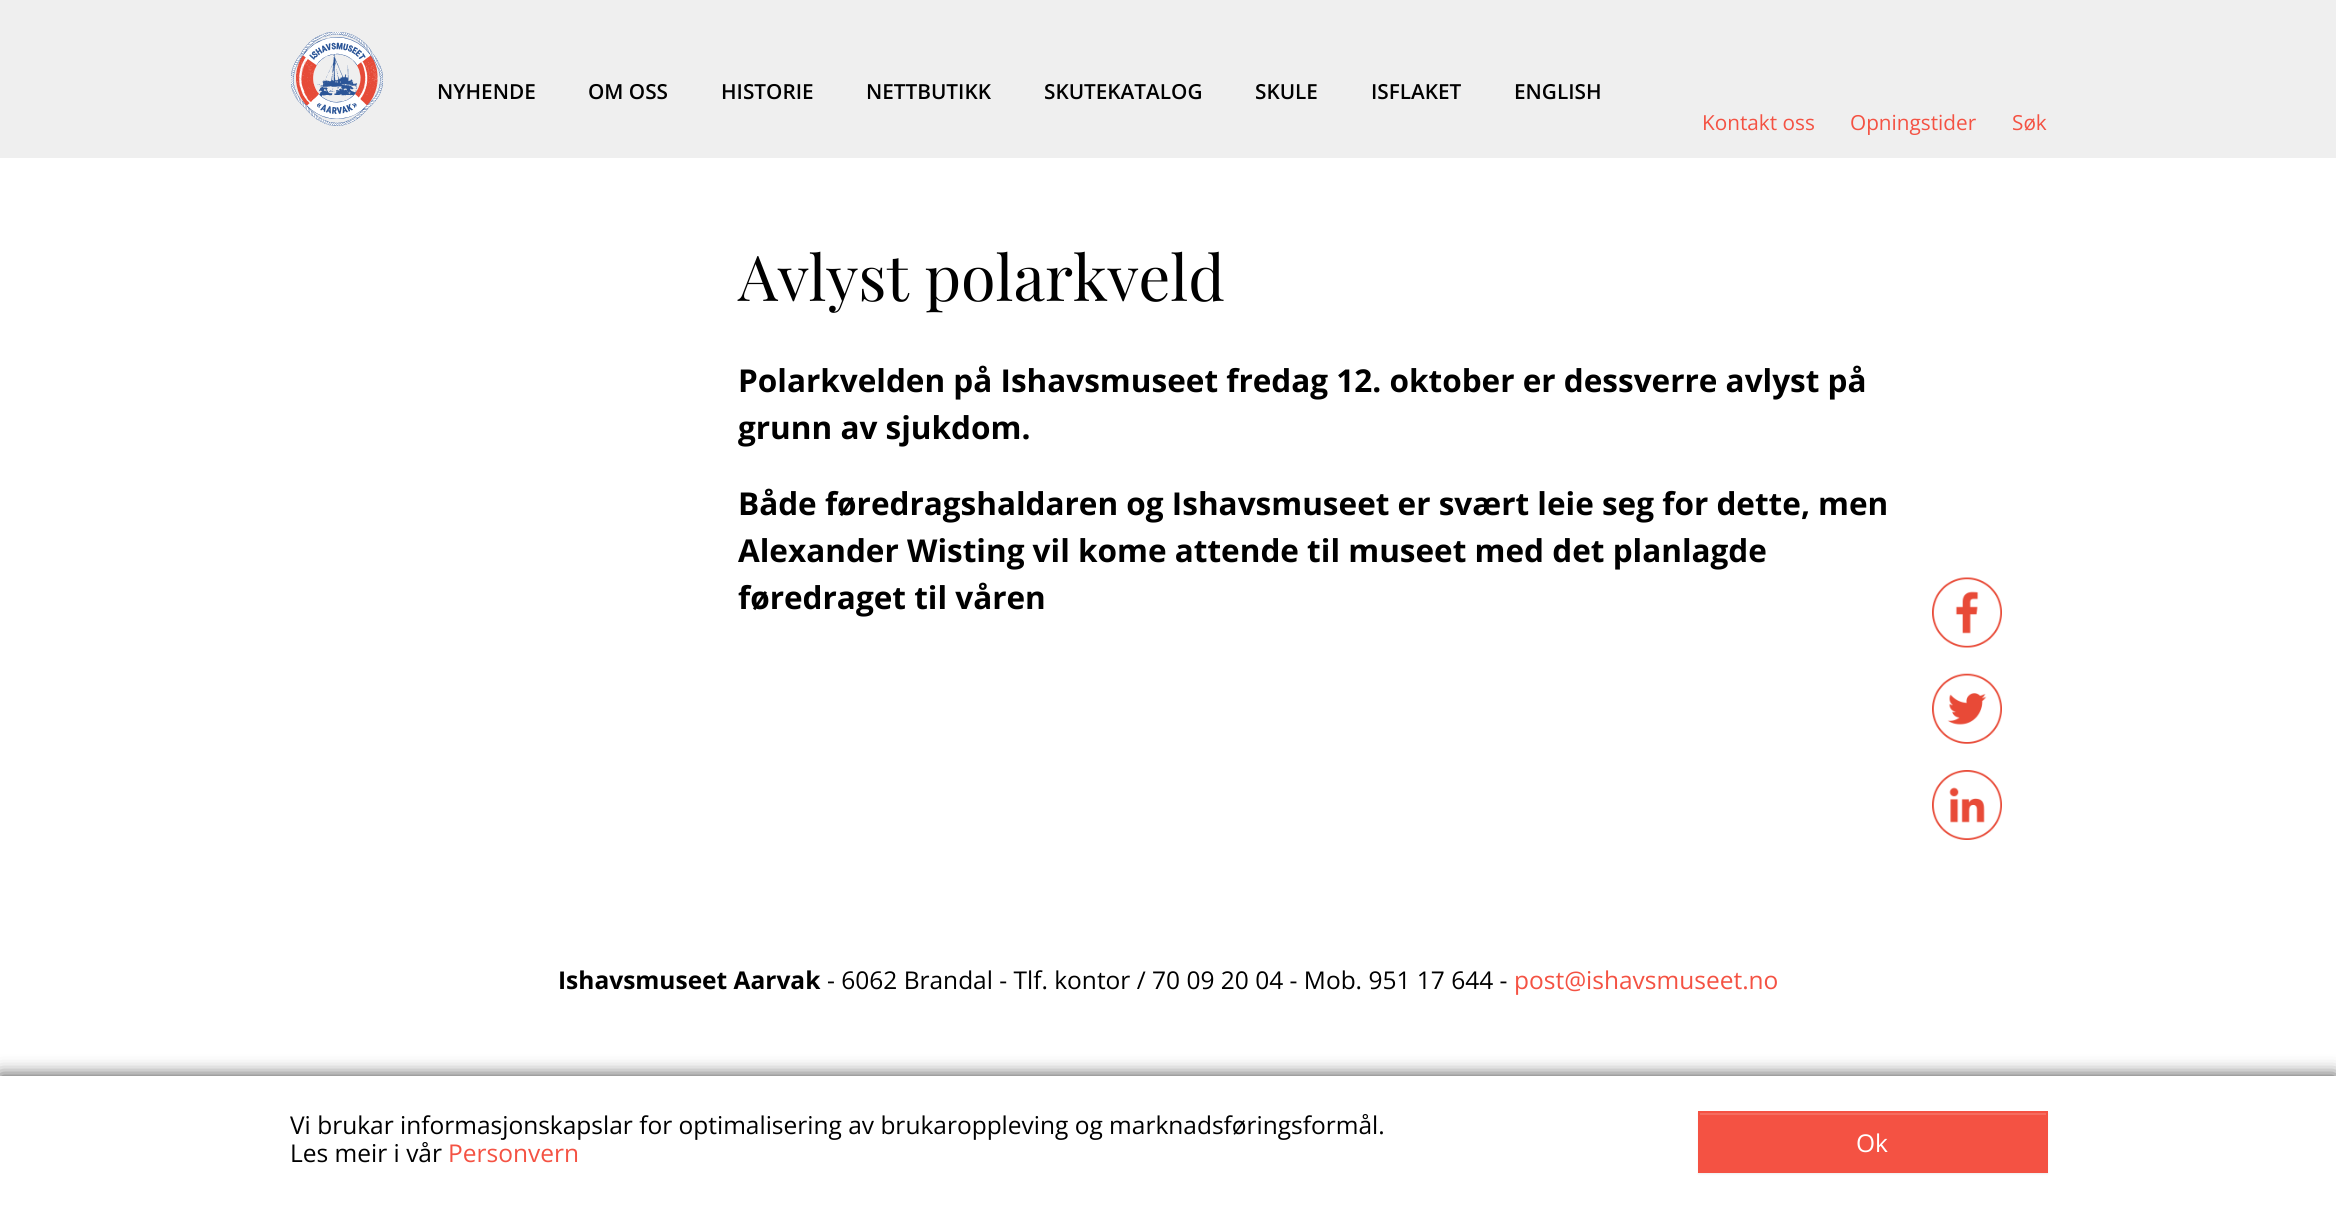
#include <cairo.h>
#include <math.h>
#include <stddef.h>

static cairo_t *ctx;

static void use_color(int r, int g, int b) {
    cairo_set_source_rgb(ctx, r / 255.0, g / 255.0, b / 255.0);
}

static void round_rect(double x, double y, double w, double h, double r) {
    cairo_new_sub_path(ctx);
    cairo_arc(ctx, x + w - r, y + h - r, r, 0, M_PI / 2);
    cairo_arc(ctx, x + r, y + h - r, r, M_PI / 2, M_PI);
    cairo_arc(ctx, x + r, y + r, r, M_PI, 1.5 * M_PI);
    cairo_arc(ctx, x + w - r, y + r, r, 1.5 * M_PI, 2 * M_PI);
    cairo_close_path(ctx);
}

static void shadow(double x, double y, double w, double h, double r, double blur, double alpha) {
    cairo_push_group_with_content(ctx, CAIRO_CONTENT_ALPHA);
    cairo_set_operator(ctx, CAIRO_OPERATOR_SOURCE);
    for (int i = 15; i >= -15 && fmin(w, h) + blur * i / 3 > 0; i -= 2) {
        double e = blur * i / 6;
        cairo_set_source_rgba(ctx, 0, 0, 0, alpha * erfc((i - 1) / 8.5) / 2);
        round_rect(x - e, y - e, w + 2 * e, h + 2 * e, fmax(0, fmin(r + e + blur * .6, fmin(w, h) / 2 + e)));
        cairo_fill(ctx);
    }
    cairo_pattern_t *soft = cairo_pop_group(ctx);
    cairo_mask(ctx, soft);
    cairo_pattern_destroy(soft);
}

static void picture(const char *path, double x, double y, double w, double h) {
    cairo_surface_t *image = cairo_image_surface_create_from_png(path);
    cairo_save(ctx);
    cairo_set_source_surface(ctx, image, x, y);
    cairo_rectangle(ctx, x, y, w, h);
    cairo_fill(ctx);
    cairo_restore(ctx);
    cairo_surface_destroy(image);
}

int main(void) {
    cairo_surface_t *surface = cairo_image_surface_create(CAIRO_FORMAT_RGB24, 2336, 1207);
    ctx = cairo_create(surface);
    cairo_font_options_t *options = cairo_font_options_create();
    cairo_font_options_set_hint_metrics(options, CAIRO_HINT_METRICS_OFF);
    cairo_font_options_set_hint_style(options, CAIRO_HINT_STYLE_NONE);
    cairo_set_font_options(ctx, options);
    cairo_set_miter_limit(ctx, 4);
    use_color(255, 255, 255);
    cairo_paint(ctx);
    use_color(239, 239, 239);
    cairo_rectangle(ctx, 0, 0, 2336, 158);
    cairo_fill(ctx);
    picture("img1.png", 291, 32, 92, 94);
    cairo_select_font_face(ctx, "Open Sans SemiBold", CAIRO_FONT_SLANT_NORMAL, CAIRO_FONT_WEIGHT_NORMAL);
    cairo_set_font_size(ctx, 20.75);
    use_color(0, 0, 0);
    cairo_move_to(ctx, 437, 99);
    cairo_show_text(ctx, "NYHENDE");
    cairo_move_to(ctx, 588, 99);
    cairo_show_text(ctx, "OM OSS");
    cairo_move_to(ctx, 721, 99);
    cairo_show_text(ctx, "HISTORIE");
    cairo_move_to(ctx, 866, 99);
    cairo_show_text(ctx, "NETTBUTIKK");
    cairo_move_to(ctx, 1044, 99);
    cairo_show_text(ctx, "SKUTEKATALOG");
    cairo_move_to(ctx, 1255, 99);
    cairo_show_text(ctx, "SKULE");
    cairo_move_to(ctx, 1371, 99);
    cairo_show_text(ctx, "ISFLAKET");
    cairo_move_to(ctx, 1514, 99);
    cairo_show_text(ctx, "ENGLISH");
    cairo_select_font_face(ctx, "Open Sans", CAIRO_FONT_SLANT_NORMAL, CAIRO_FONT_WEIGHT_NORMAL);
    use_color(244, 82, 67);
    cairo_move_to(ctx, 1702, 130);
    cairo_show_text(ctx, "Kontakt oss");
    cairo_move_to(ctx, 1850, 130);
    cairo_show_text(ctx, "Opningstider");
    cairo_move_to(ctx, 2012, 130);
    cairo_show_text(ctx, "Søk");
    cairo_select_font_face(ctx, "Playfair Display", CAIRO_FONT_SLANT_NORMAL, CAIRO_FONT_WEIGHT_NORMAL);
    cairo_set_font_size(ctx, 63);
    use_color(0, 0, 0);
    cairo_move_to(ctx, 738, 301);
    cairo_show_text(ctx, "Avlyst polarkveld");
    cairo_select_font_face(ctx, "Open Sans", CAIRO_FONT_SLANT_NORMAL, CAIRO_FONT_WEIGHT_BOLD);
    cairo_set_font_size(ctx, 31.5);
    cairo_move_to(ctx, 738, 392);
    cairo_show_text(ctx, "Polarkvelden på Ishavsmuseet fredag 12. oktober er dessverre avlyst på");
    cairo_move_to(ctx, 738, 439);
    cairo_show_text(ctx, "grunn av sjukdom.");
    cairo_move_to(ctx, 738, 515);
    cairo_show_text(ctx, "Både føredragshaldaren og Ishavsmuseet er svært leie seg for dette, men");
    cairo_move_to(ctx, 738, 562);
    cairo_show_text(ctx, "Alexander Wisting vil kome attende til museet med det planlagde");
    cairo_move_to(ctx, 738, 609);
    cairo_show_text(ctx, "føredraget til våren");
    picture("img2.png", 1932, 577, 70, 71);
    picture("img3.png", 1932, 673, 70, 71);
    picture("img4.png", 1932, 770, 70, 70);
    cairo_set_font_size(ctx, 24.5);
    cairo_move_to(ctx, 558, 989);
    cairo_show_text(ctx, "Ishavsmuseet Aarvak");
    cairo_select_font_face(ctx, "Open Sans", CAIRO_FONT_SLANT_NORMAL, CAIRO_FONT_WEIGHT_NORMAL);
    cairo_move_to(ctx, 827, 989);
    cairo_show_text(ctx, "- 6062 Brandal - Tlf. kontor / 70 09 20 04 - Mob. 951 17 644 -");
    use_color(244, 82, 67);
    cairo_move_to(ctx, 1514, 989);
    cairo_show_text(ctx, "post@ishavsmuseet.no");
    use_color(0, 0, 0);
    shadow(0, 1076, 2336, 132, 0, 9, 0.75);
    use_color(255, 255, 255);
    cairo_rectangle(ctx, 0, 1076, 2336, 131);
    cairo_fill(ctx);
    use_color(0, 0, 0);
    cairo_move_to(ctx, 290, 1134);
    cairo_show_text(ctx, "Vi brukar informasjonskapslar for optimalisering av brukaroppleving og marknadsføringsformål.");
    cairo_move_to(ctx, 290, 1162);
    cairo_show_text(ctx, "Les meir i vår");
    use_color(244, 82, 67);
    cairo_move_to(ctx, 448, 1162);
    cairo_show_text(ctx, "Personvern");
    use_color(0, 0, 0);
    shadow(1698, 1113, 350, 61, 0, 1, 0.07);
    use_color(244, 82, 67);
    cairo_rectangle(ctx, 1700, 1115, 346, 56);
    cairo_fill(ctx);
    use_color(246, 108, 95);
    cairo_rectangle(ctx, 1699, 1113, 347, 2);
    cairo_fill(ctx);
    cairo_rectangle(ctx, 1699, 1112, 348, 60);
    use_color(244, 82, 67);
    cairo_stroke(ctx);
    use_color(255, 255, 255);
    cairo_move_to(ctx, 1856, 1152);
    cairo_show_text(ctx, "Ok");
    cairo_surface_write_to_png(surface, "result.png");
    cairo_font_options_destroy(options);
    cairo_destroy(ctx);
    cairo_surface_destroy(surface);
    return 0;
}
